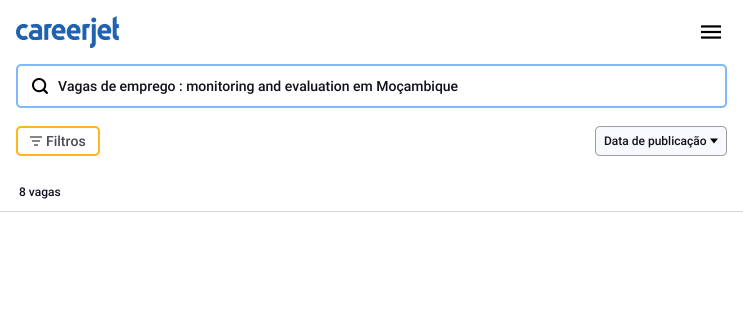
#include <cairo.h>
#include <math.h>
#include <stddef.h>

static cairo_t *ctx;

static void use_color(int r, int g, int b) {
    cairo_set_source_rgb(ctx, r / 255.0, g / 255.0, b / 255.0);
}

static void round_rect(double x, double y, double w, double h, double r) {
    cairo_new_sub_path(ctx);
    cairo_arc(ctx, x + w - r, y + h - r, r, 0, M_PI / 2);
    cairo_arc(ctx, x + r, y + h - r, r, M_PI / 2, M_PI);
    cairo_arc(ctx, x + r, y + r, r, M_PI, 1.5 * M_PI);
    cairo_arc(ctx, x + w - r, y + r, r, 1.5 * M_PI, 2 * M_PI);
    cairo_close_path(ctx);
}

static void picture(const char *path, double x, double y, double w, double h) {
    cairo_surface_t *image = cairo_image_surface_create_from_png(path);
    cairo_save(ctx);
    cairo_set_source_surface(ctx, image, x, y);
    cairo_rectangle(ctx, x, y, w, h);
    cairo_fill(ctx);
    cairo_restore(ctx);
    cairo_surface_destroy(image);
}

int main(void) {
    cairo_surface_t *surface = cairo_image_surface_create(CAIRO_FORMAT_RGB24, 743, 326);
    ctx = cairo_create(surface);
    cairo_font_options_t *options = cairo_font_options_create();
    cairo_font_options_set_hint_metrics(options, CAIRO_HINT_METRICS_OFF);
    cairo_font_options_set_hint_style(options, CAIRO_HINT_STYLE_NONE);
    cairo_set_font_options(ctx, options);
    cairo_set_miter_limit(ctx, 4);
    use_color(255, 255, 255);
    cairo_paint(ctx);
    picture("img1.png", 16, 16, 103, 32);
    picture("img2.png", 701, 25, 20, 14);
    round_rect(17, 65, 709, 42, 4);
    use_color(128, 184, 248);
    cairo_stroke(ctx);
    picture("img3.png", 32, 78, 16, 16);
    cairo_select_font_face(ctx, "Roboto Medium", CAIRO_FONT_SLANT_NORMAL, CAIRO_FONT_WEIGHT_NORMAL);
    cairo_set_font_size(ctx, 14);
    use_color(18, 16, 28);
    cairo_move_to(ctx, 58, 91);
    cairo_show_text(ctx, "Vagas de emprego : monitoring and evaluation em Moçambique");
    round_rect(17, 127, 82, 28, 4);
    use_color(255, 181, 32);
    cairo_stroke(ctx);
    picture("img4.png", 30, 136, 12, 10);
    use_color(75, 73, 86);
    cairo_move_to(ctx, 46, 146);
    cairo_show_text(ctx, "Filtros");
    use_color(248, 249, 252);
    round_rect(595.5, 126.5, 131, 29, 4.5);
    cairo_fill_preserve(ctx);
    use_color(158, 157, 166);
    cairo_set_line_width(ctx, 1);
    cairo_stroke(ctx);
    cairo_set_font_size(ctx, 12);
    use_color(18, 16, 28);
    cairo_move_to(ctx, 604, 145);
    cairo_show_text(ctx, "Data de publicação");
    use_color(0, 0, 0);
    cairo_new_path(ctx);
    cairo_move_to(ctx, 718, 138.5);
    cairo_line_to(ctx, 714, 143.5);
    cairo_line_to(ctx, 710, 138.5);
    cairo_line_to(ctx, 718, 138.5);
    cairo_fill(ctx);
    use_color(18, 16, 28);
    cairo_move_to(ctx, 19, 196);
    cairo_show_text(ctx, "8 vagas");
    use_color(212, 214, 222);
    cairo_rectangle(ctx, 0, 211, 743, 1);
    cairo_fill(ctx);
    cairo_surface_write_to_png(surface, "result.png");
    cairo_font_options_destroy(options);
    cairo_destroy(ctx);
    cairo_surface_destroy(surface);
    return 0;
}
